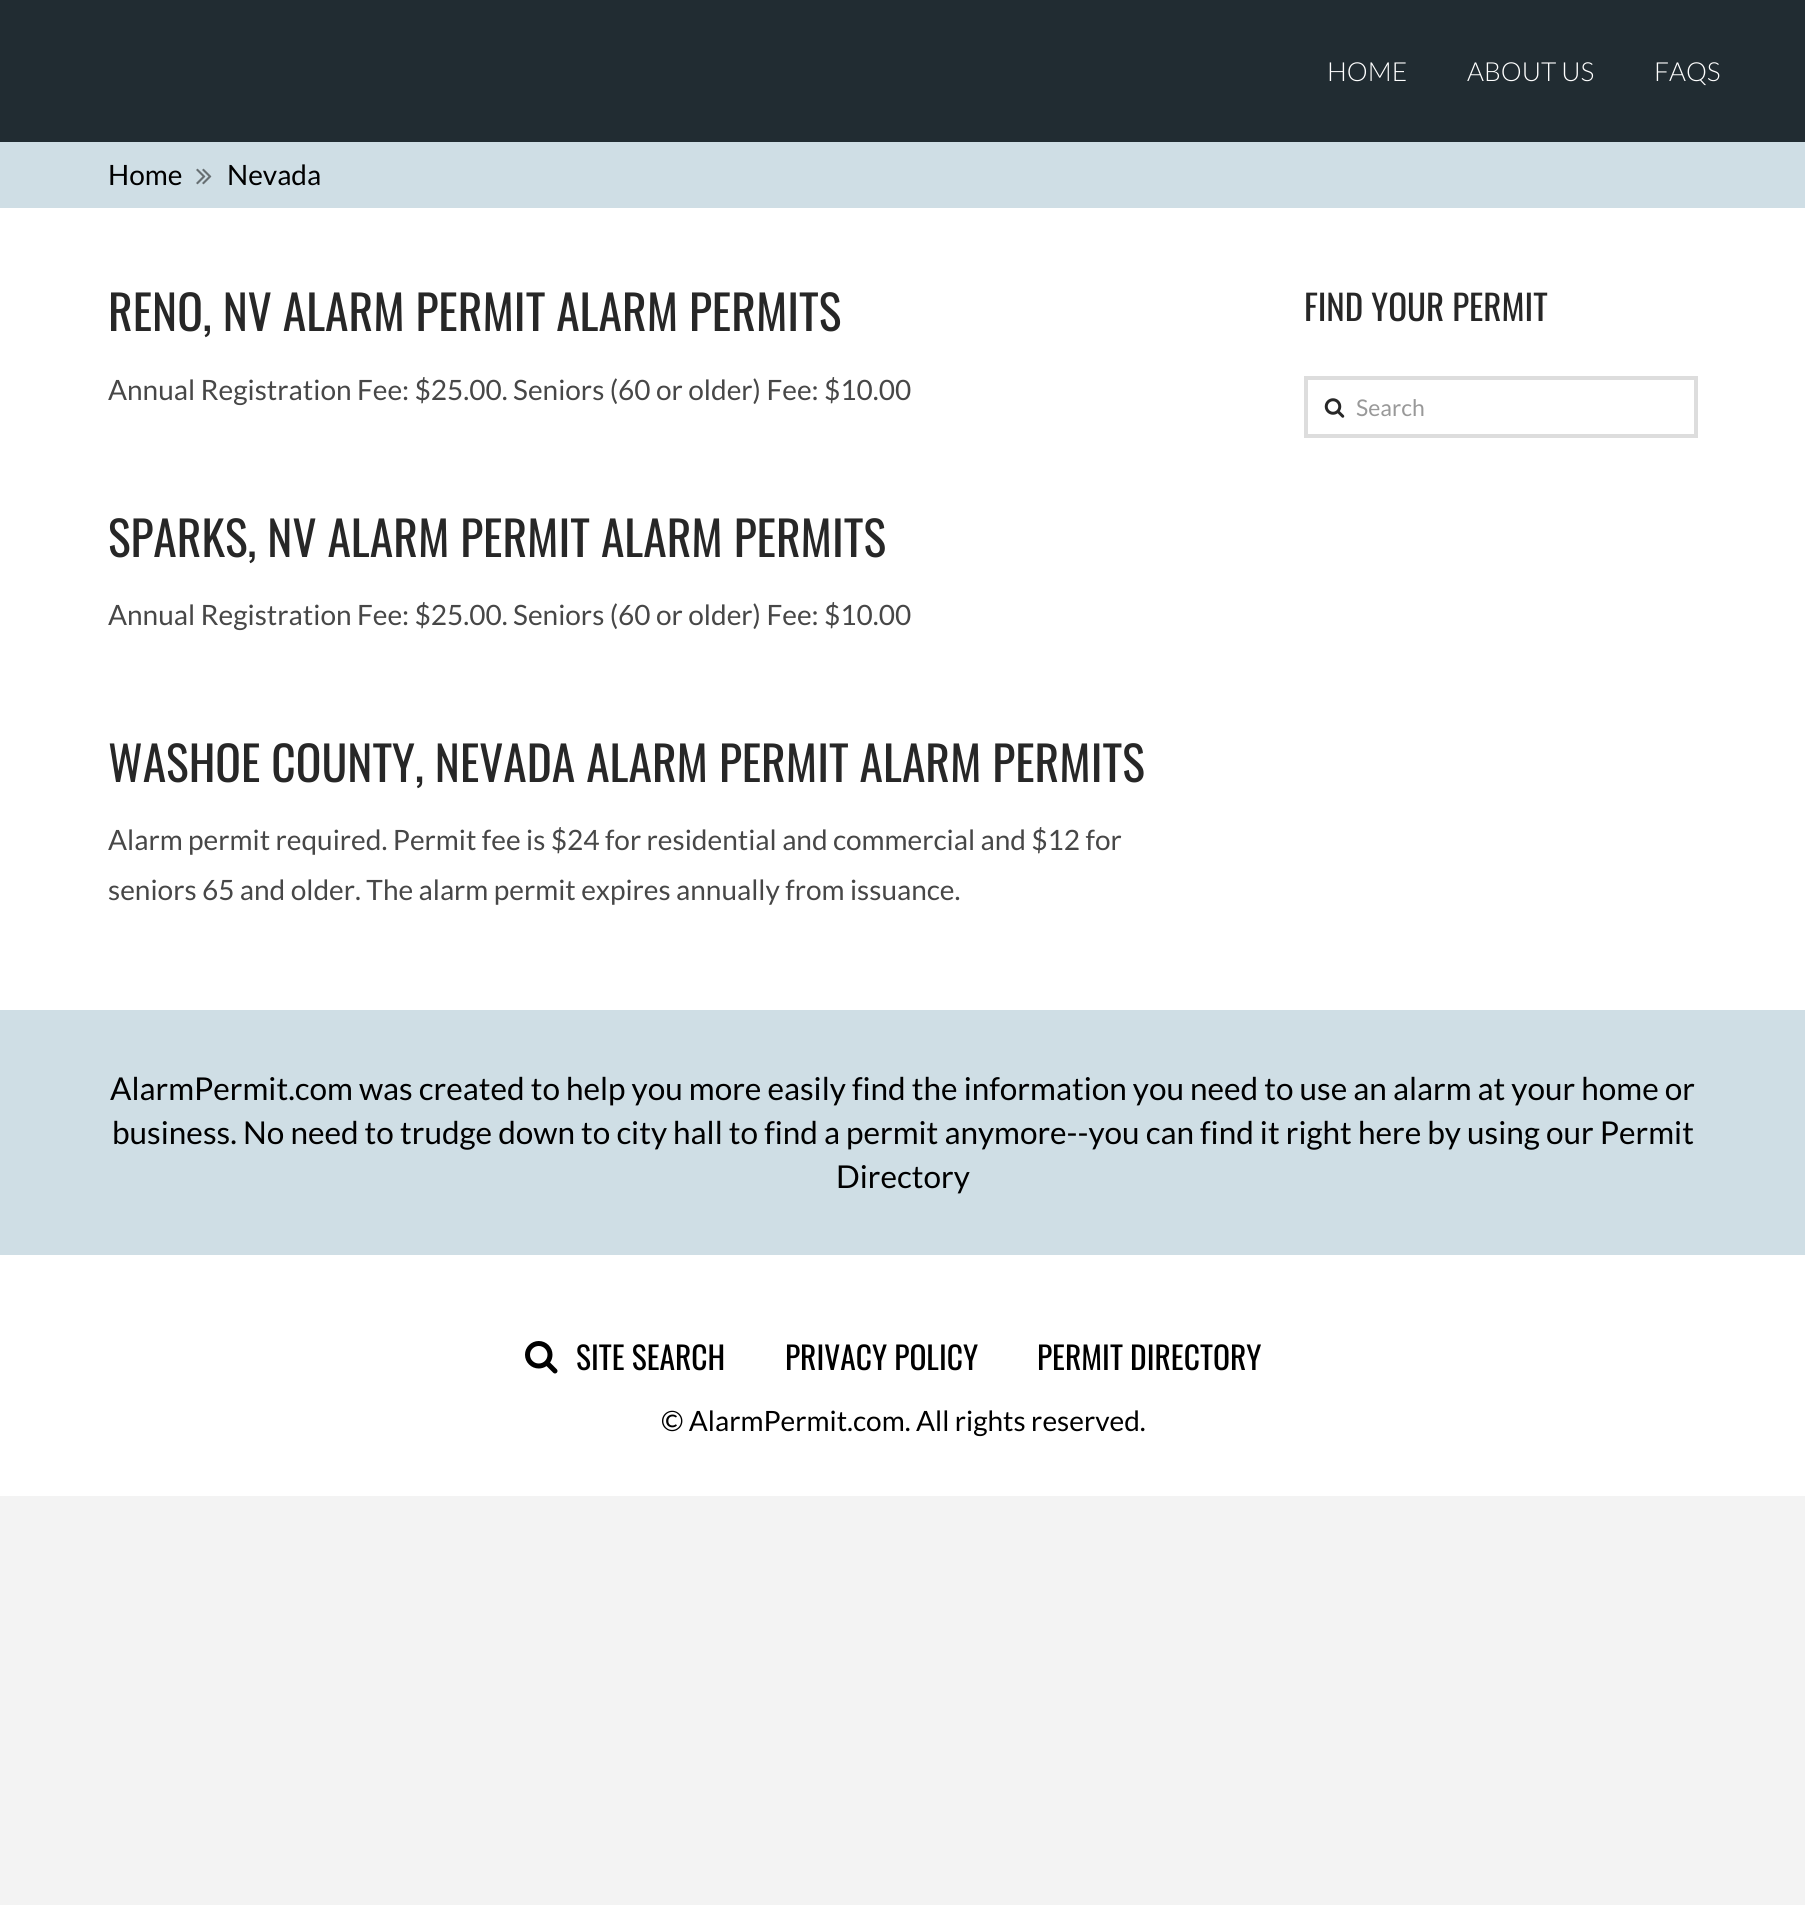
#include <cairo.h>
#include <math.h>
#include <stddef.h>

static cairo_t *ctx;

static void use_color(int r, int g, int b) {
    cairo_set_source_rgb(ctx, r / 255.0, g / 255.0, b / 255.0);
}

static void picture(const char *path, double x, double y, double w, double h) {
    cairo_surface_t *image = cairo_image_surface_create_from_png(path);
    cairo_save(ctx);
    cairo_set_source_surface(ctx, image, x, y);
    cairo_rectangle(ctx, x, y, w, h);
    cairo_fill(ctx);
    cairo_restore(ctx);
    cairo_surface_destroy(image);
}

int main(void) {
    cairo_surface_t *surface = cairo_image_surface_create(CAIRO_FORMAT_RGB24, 1805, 1905);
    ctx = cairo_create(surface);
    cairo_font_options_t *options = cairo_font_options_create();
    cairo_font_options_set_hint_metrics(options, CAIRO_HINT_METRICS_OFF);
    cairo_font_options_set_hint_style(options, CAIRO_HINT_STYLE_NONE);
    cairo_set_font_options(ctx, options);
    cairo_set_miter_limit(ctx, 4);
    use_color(243, 243, 243);
    cairo_paint(ctx);
    use_color(255, 255, 255);
    cairo_rectangle(ctx, 0, 208, 1805, 1288);
    cairo_fill(ctx);
    use_color(33, 44, 50);
    cairo_rectangle(ctx, 0, 0, 1805, 142);
    cairo_fill(ctx);
    cairo_select_font_face(ctx, "Lato Light", CAIRO_FONT_SLANT_NORMAL, CAIRO_FONT_WEIGHT_NORMAL);
    cairo_set_font_size(ctx, 26.25);
    use_color(255, 255, 255);
    cairo_move_to(ctx, 1327, 81);
    cairo_show_text(ctx, "HOME");
    cairo_move_to(ctx, 1467, 81);
    cairo_show_text(ctx, "ABOUT US");
    cairo_move_to(ctx, 1654, 81);
    cairo_show_text(ctx, "FAQS");
    use_color(207, 222, 229);
    cairo_rectangle(ctx, 0, 142, 1805, 66);
    cairo_fill(ctx);
    cairo_select_font_face(ctx, "Lato", CAIRO_FONT_SLANT_NORMAL, CAIRO_FONT_WEIGHT_NORMAL);
    cairo_set_font_size(ctx, 28);
    use_color(0, 0, 0);
    cairo_move_to(ctx, 108, 185);
    cairo_show_text(ctx, "Home");
    picture("img1.png", 196, 168, 16, 17);
    cairo_move_to(ctx, 227, 185);
    cairo_show_text(ctx, "Nevada");
    cairo_select_font_face(ctx, "Oswald", CAIRO_FONT_SLANT_NORMAL, CAIRO_FONT_WEIGHT_NORMAL);
    cairo_set_font_size(ctx, 47.6);
    use_color(39, 39, 39);
    cairo_move_to(ctx, 108, 331);
    cairo_show_text(ctx, "RENO, NV ALARM PERMIT ALARM PERMITS");
    cairo_select_font_face(ctx, "Lato", CAIRO_FONT_SLANT_NORMAL, CAIRO_FONT_WEIGHT_NORMAL);
    cairo_set_font_size(ctx, 28);
    use_color(71, 71, 71);
    cairo_move_to(ctx, 108, 400);
    cairo_show_text(ctx, "Annual Registration Fee: $25.00. Seniors (60 or older) Fee: $10.00");
    cairo_select_font_face(ctx, "Oswald", CAIRO_FONT_SLANT_NORMAL, CAIRO_FONT_WEIGHT_NORMAL);
    cairo_set_font_size(ctx, 47.6);
    use_color(39, 39, 39);
    cairo_move_to(ctx, 108, 557);
    cairo_show_text(ctx, "SPARKS, NV ALARM PERMIT ALARM PERMITS");
    cairo_select_font_face(ctx, "Lato", CAIRO_FONT_SLANT_NORMAL, CAIRO_FONT_WEIGHT_NORMAL);
    cairo_set_font_size(ctx, 28);
    use_color(71, 71, 71);
    cairo_move_to(ctx, 108, 625);
    cairo_show_text(ctx, "Annual Registration Fee: $25.00. Seniors (60 or older) Fee: $10.00");
    cairo_select_font_face(ctx, "Oswald", CAIRO_FONT_SLANT_NORMAL, CAIRO_FONT_WEIGHT_NORMAL);
    cairo_set_font_size(ctx, 47.6);
    use_color(39, 39, 39);
    cairo_move_to(ctx, 108, 782);
    cairo_show_text(ctx, "WASHOE COUNTY, NEVADA ALARM PERMIT ALARM PERMITS");
    cairo_select_font_face(ctx, "Lato", CAIRO_FONT_SLANT_NORMAL, CAIRO_FONT_WEIGHT_NORMAL);
    cairo_set_font_size(ctx, 28);
    use_color(71, 71, 71);
    cairo_move_to(ctx, 108, 850);
    cairo_show_text(ctx, "Alarm permit required. Permit fee is $24 for residential and commercial and $12 for");
    cairo_move_to(ctx, 108, 900);
    cairo_show_text(ctx, "seniors 65 and older. The alarm permit expires annually from issuance.");
    cairo_select_font_face(ctx, "Oswald", CAIRO_FONT_SLANT_NORMAL, CAIRO_FONT_WEIGHT_NORMAL);
    cairo_set_font_size(ctx, 35);
    use_color(39, 39, 39);
    cairo_move_to(ctx, 1304, 321);
    cairo_show_text(ctx, "FIND YOUR PERMIT");
    cairo_rectangle(ctx, 1306, 378, 390, 58);
    use_color(221, 221, 221);
    cairo_set_line_width(ctx, 4);
    cairo_stroke(ctx);
    picture("img2.png", 1324, 398, 21, 20);
    cairo_select_font_face(ctx, "Lato", CAIRO_FONT_SLANT_NORMAL, CAIRO_FONT_WEIGHT_NORMAL);
    cairo_set_font_size(ctx, 23);
    use_color(153, 153, 153);
    cairo_move_to(ctx, 1356, 416);
    cairo_show_text(ctx, "Search");
    use_color(207, 222, 229);
    cairo_rectangle(ctx, 0, 1010, 1805, 245);
    cairo_fill(ctx);
    cairo_set_font_size(ctx, 31.5);
    use_color(0, 0, 0);
    cairo_move_to(ctx, 110, 1100);
    cairo_show_text(ctx, "AlarmPermit.com was created to help you more easily find the information you need to use an alarm at your home or");
    cairo_move_to(ctx, 112, 1144);
    cairo_show_text(ctx, "business. No need to trudge down to city hall to find a permit anymore--you can find it right here by using our Permit");
    cairo_move_to(ctx, 836, 1188);
    cairo_show_text(ctx, "Directory");
    picture("img3.png", 525, 1341, 33, 33);
    cairo_select_font_face(ctx, "Oswald", CAIRO_FONT_SLANT_NORMAL, CAIRO_FONT_WEIGHT_NORMAL);
    cairo_move_to(ctx, 576, 1370);
    cairo_show_text(ctx, "SITE SEARCH");
    cairo_move_to(ctx, 785, 1370);
    cairo_show_text(ctx, "PRIVACY POLICY");
    cairo_move_to(ctx, 1037, 1370);
    cairo_show_text(ctx, "PERMIT DIRECTORY");
    cairo_select_font_face(ctx, "Lato", CAIRO_FONT_SLANT_NORMAL, CAIRO_FONT_WEIGHT_NORMAL);
    cairo_set_font_size(ctx, 28);
    cairo_move_to(ctx, 661, 1431);
    cairo_show_text(ctx, "© AlarmPermit.com. All rights reserved.");
    cairo_surface_write_to_png(surface, "result.png");
    cairo_font_options_destroy(options);
    cairo_destroy(ctx);
    cairo_surface_destroy(surface);
    return 0;
}
